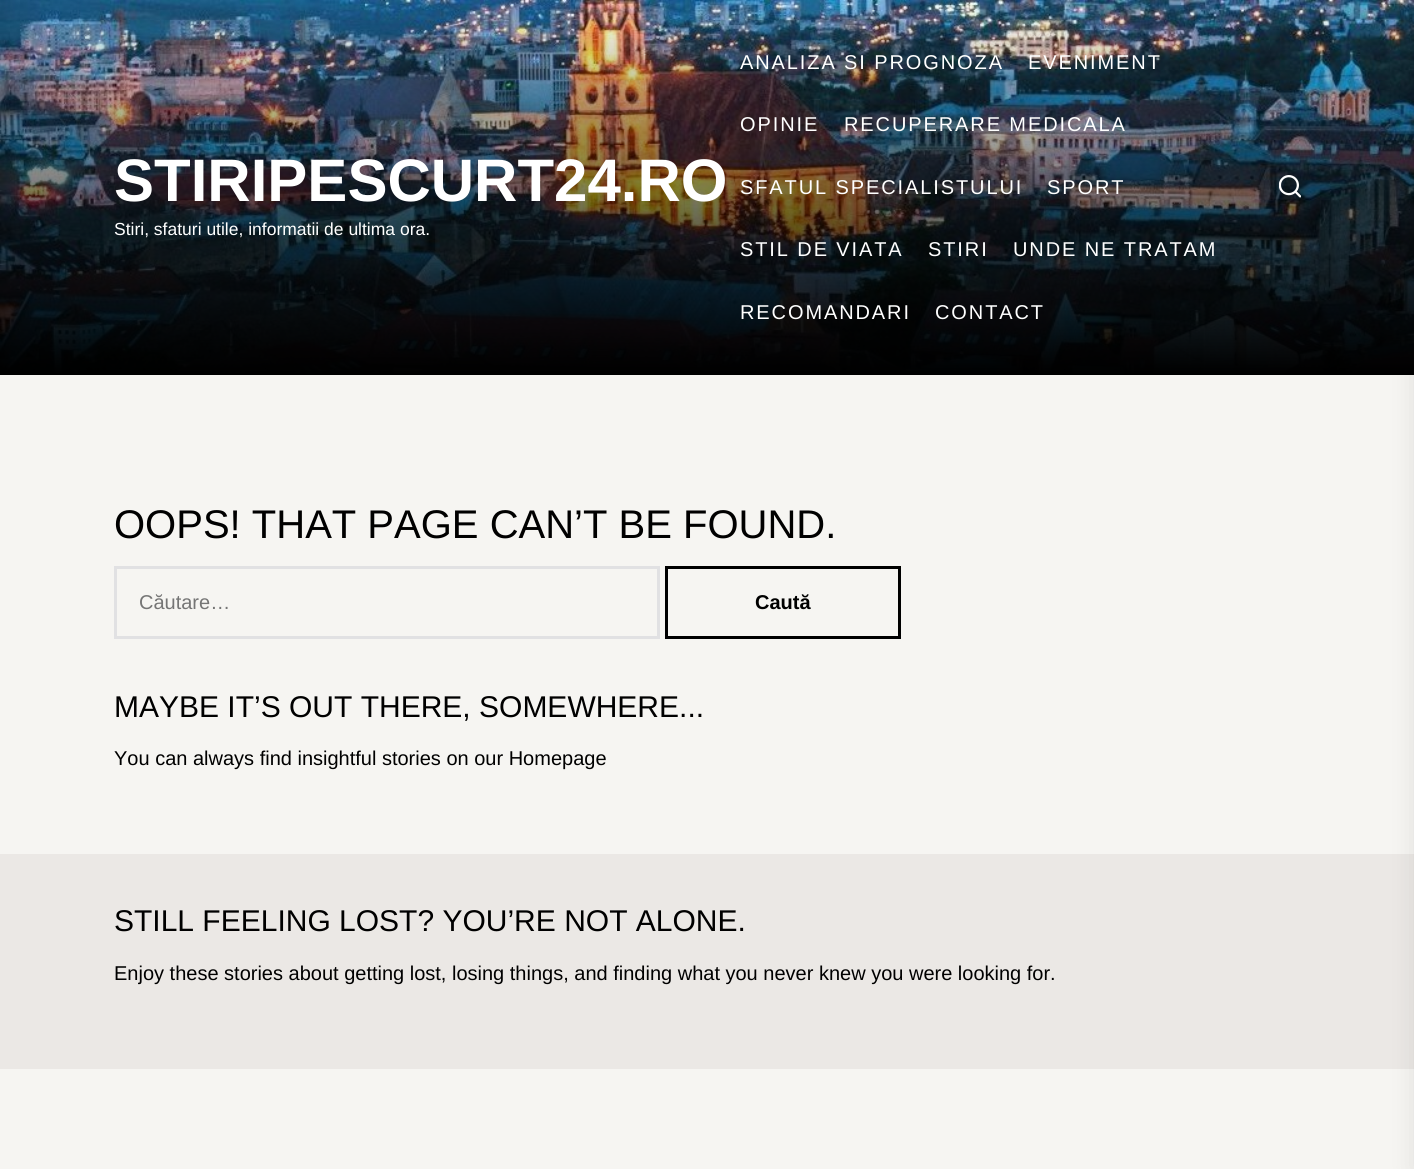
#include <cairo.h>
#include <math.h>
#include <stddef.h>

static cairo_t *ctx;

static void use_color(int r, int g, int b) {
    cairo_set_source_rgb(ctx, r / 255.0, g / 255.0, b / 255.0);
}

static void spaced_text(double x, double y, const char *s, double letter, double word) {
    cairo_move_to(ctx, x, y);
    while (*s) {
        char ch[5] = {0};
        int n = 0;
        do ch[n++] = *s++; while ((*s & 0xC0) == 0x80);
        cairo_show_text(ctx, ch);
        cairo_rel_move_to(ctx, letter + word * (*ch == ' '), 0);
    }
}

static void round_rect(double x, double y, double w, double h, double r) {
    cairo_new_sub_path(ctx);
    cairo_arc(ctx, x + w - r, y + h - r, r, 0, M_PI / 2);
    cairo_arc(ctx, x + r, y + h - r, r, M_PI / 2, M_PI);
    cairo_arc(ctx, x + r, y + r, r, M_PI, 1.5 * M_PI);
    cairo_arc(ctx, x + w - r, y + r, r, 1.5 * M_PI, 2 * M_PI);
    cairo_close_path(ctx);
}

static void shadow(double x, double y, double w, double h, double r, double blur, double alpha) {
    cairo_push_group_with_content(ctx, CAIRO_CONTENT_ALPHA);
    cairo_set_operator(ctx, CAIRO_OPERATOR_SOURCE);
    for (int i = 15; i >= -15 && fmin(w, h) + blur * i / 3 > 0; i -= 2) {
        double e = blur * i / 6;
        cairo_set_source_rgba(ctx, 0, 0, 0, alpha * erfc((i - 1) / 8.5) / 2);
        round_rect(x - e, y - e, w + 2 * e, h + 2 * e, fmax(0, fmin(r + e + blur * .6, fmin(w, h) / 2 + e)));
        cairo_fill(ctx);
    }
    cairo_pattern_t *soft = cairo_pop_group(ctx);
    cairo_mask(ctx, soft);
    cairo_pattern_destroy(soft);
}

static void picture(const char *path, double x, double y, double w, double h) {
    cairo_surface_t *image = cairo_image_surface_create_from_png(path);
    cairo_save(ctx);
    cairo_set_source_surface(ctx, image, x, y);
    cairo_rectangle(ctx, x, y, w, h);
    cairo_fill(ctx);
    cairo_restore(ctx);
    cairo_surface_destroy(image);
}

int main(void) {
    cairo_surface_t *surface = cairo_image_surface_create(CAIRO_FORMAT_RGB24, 1414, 1169);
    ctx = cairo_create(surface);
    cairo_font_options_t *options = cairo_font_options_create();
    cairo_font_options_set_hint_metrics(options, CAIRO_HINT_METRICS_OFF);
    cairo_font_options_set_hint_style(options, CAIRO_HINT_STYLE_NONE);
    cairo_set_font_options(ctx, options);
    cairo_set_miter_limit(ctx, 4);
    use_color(246, 245, 242);
    cairo_paint(ctx);
    picture("img1.png", 0, 0, 1414, 375);
    cairo_select_font_face(ctx, "Liberation Sans", CAIRO_FONT_SLANT_NORMAL, CAIRO_FONT_WEIGHT_BOLD);
    cairo_set_font_size(ctx, 60);
    use_color(255, 255, 255);
    cairo_move_to(ctx, 114, 201);
    cairo_show_text(ctx, "STIRIPESCURT24.RO");
    cairo_select_font_face(ctx, "Liberation Sans", CAIRO_FONT_SLANT_NORMAL, CAIRO_FONT_WEIGHT_NORMAL);
    cairo_set_font_size(ctx, 17.5);
    cairo_move_to(ctx, 114, 235);
    cairo_show_text(ctx, "Stiri, sfaturi utile, informatii de ultima ora.");
    cairo_set_font_size(ctx, 20);
    spaced_text(740, 69, "ANALIZA SI PROGNOZA", 1.9, 0);
    spaced_text(1028, 69, "EVENIMENT", 1.9, 0);
    spaced_text(740, 131, "OPINIE", 1.9, 0);
    spaced_text(844, 131, "RECUPERARE MEDICALA", 1.9, 0);
    spaced_text(740, 194, "SFATUL SPECIALISTULUI", 1.9, 0);
    spaced_text(1047, 194, "SPORT", 1.9, 0);
    spaced_text(740, 256, "STIL DE VIATA", 1.9, 0);
    spaced_text(928, 256, "STIRI", 1.9, 0);
    spaced_text(1013, 256, "UNDE NE TRATAM", 1.9, 0);
    spaced_text(740, 319, "RECOMANDARI", 1.9, 0);
    spaced_text(935, 319, "CONTACT", 1.9, 0);
    picture("img2.png", 1279, 175, 22, 23);
    use_color(235, 232, 229);
    cairo_rectangle(ctx, 0, 854, 1414, 215);
    cairo_fill(ctx);
    use_color(0, 0, 0);
    shadow(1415, 0, 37, 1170, 0, 12.5, 0.1);
    cairo_set_font_size(ctx, 40);
    use_color(0, 0, 0);
    cairo_move_to(ctx, 114, 538);
    cairo_show_text(ctx, "OOPS! THAT PAGE CAN’T BE FOUND.");
    cairo_rectangle(ctx, 115.5, 567.5, 543, 70);
    use_color(225, 225, 227);
    cairo_set_line_width(ctx, 3);
    cairo_stroke(ctx);
    cairo_set_font_size(ctx, 20);
    use_color(117, 117, 117);
    cairo_move_to(ctx, 139, 609);
    cairo_show_text(ctx, "Căutare…");
    cairo_rectangle(ctx, 666.5, 567.5, 233, 70);
    use_color(0, 0, 0);
    cairo_stroke(ctx);
    cairo_select_font_face(ctx, "Liberation Sans", CAIRO_FONT_SLANT_NORMAL, CAIRO_FONT_WEIGHT_BOLD);
    cairo_move_to(ctx, 755, 609);
    cairo_show_text(ctx, "Caută");
    cairo_select_font_face(ctx, "Liberation Sans", CAIRO_FONT_SLANT_NORMAL, CAIRO_FONT_WEIGHT_NORMAL);
    cairo_set_font_size(ctx, 30);
    cairo_move_to(ctx, 114, 717);
    cairo_show_text(ctx, "MAYBE IT’S OUT THERE, SOMEWHERE...");
    cairo_set_font_size(ctx, 20);
    cairo_move_to(ctx, 114, 765);
    cairo_show_text(ctx, "You can always find insightful stories on our Homepage");
    cairo_set_font_size(ctx, 30);
    cairo_move_to(ctx, 114, 931);
    cairo_show_text(ctx, "STILL FEELING LOST? YOU’RE NOT ALONE.");
    cairo_set_font_size(ctx, 20);
    cairo_move_to(ctx, 114, 980);
    cairo_show_text(ctx, "Enjoy these stories about getting lost, losing things, and finding what you never knew you were looking for.");
    cairo_surface_write_to_png(surface, "result.png");
    cairo_font_options_destroy(options);
    cairo_destroy(ctx);
    cairo_surface_destroy(surface);
    return 0;
}
